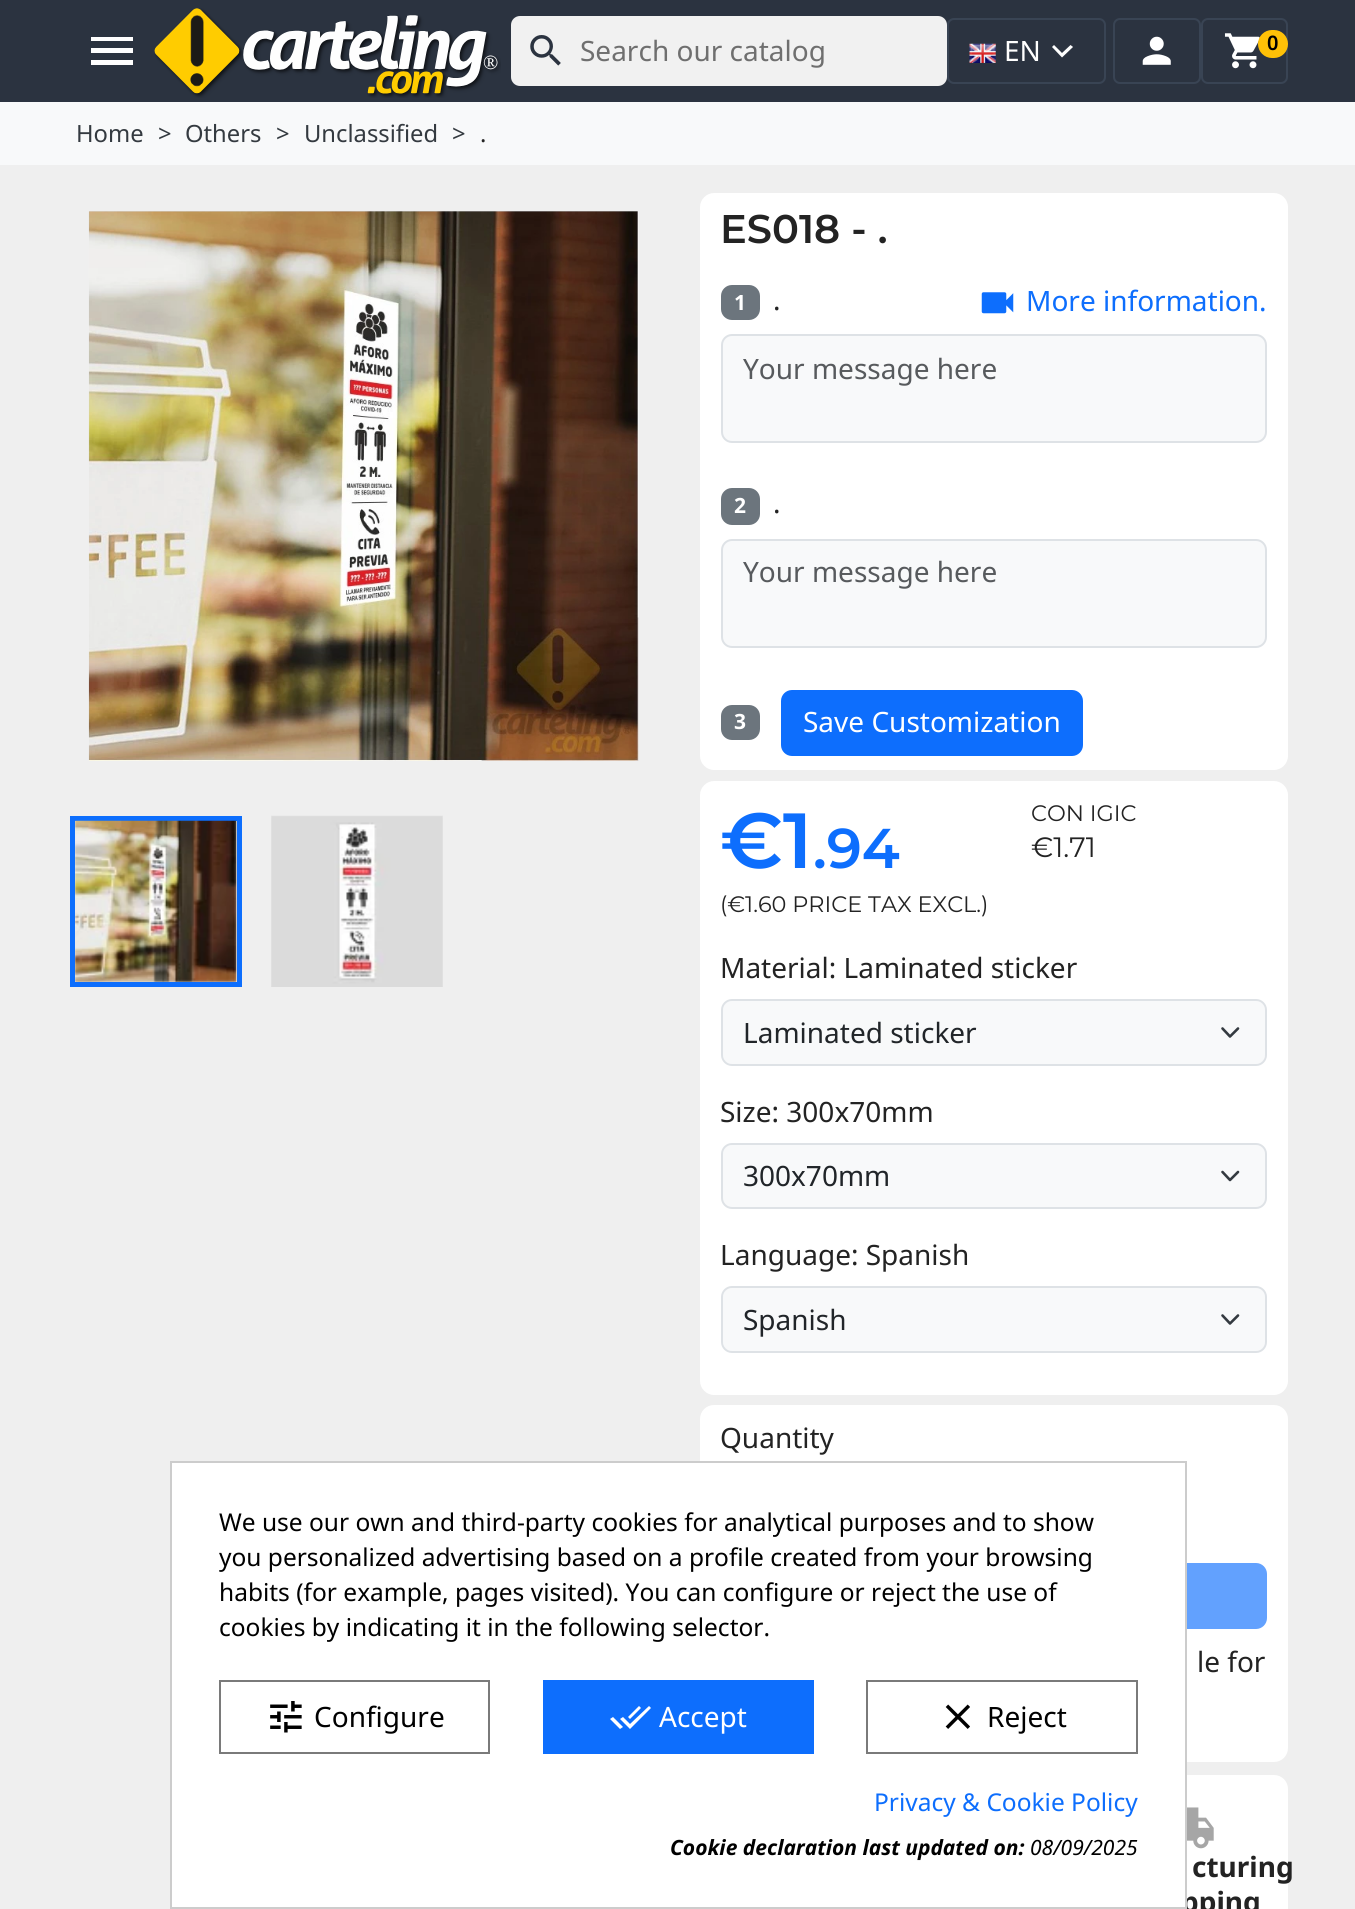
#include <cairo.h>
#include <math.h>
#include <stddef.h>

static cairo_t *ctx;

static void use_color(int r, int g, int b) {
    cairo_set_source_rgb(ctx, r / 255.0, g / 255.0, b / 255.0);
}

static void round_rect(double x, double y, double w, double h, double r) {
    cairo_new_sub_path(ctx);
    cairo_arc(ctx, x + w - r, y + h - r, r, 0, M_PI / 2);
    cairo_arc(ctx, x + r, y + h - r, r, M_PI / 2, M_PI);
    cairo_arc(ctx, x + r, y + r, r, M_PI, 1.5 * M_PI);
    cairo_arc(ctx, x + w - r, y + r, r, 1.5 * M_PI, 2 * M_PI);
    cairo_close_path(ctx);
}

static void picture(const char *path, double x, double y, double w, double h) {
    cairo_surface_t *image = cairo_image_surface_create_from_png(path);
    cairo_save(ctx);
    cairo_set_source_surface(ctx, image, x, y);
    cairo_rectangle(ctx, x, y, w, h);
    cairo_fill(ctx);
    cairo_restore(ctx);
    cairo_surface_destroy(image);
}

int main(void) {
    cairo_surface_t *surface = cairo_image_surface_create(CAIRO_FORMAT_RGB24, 1355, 1909);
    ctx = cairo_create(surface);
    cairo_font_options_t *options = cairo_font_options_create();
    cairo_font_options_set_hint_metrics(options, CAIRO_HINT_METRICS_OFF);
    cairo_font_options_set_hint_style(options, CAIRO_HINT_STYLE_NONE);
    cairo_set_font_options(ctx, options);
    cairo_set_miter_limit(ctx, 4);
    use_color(239, 239, 239);
    cairo_paint(ctx);
    use_color(43, 51, 64);
    cairo_rectangle(ctx, 0, 0, 1355, 102);
    cairo_fill(ctx);
    use_color(255, 255, 255);
    cairo_new_path(ctx);
    cairo_move_to(ctx, 91, 37);
    cairo_line_to(ctx, 133, 37);
    cairo_line_to(ctx, 133, 41);
    cairo_line_to(ctx, 91, 41);
    cairo_close_path(ctx);
    cairo_move_to(ctx, 91, 53);
    cairo_line_to(ctx, 91, 48);
    cairo_line_to(ctx, 133, 48);
    cairo_line_to(ctx, 133, 53);
    cairo_close_path(ctx);
    cairo_move_to(ctx, 91, 65);
    cairo_line_to(ctx, 91, 60);
    cairo_line_to(ctx, 133, 60);
    cairo_line_to(ctx, 133, 65);
    cairo_close_path(ctx);
    cairo_fill(ctx);
    picture("img1.png", 154, 8, 347, 90);
    use_color(241, 241, 241);
    round_rect(511, 16, 436, 70, 9);
    cairo_fill(ctx);
    picture("img2.png", 530, 35, 31, 31);
    cairo_select_font_face(ctx, "Noto Sans", CAIRO_FONT_SLANT_NORMAL, CAIRO_FONT_WEIGHT_NORMAL);
    cairo_set_font_size(ctx, 28);
    use_color(111, 111, 111);
    cairo_move_to(ctx, 580, 61);
    cairo_show_text(ctx, "Search our catalog");
    round_rect(948, 19, 157, 64, 6);
    use_color(57, 68, 84);
    cairo_stroke(ctx);
    picture("img3.png", 969, 43, 27, 20);
    use_color(255, 255, 255);
    cairo_move_to(ctx, 1004, 61);
    cairo_show_text(ctx, "EN");
    cairo_new_path(ctx);
    cairo_move_to(ctx, 1070.5, 45);
    cairo_line_to(ctx, 1073, 47);
    cairo_line_to(ctx, 1062, 57.5);
    cairo_line_to(ctx, 1052, 47);
    cairo_line_to(ctx, 1054, 45);
    cairo_line_to(ctx, 1062, 53);
    cairo_close_path(ctx);
    cairo_fill(ctx);
    round_rect(1114, 19, 86, 64, 6);
    use_color(57, 68, 84);
    cairo_stroke(ctx);
    picture("img4.png", 1142, 36, 29, 29);
    round_rect(1202, 19, 85, 64, 6);
    cairo_stroke(ctx);
    picture("img5.png", 1224, 33, 36, 36);
    use_color(255, 193, 7);
    round_rect(1258, 30, 30, 28, 14);
    cairo_fill(ctx);
    cairo_select_font_face(ctx, "Noto Sans SemiBold", CAIRO_FONT_SLANT_NORMAL, CAIRO_FONT_WEIGHT_NORMAL);
    cairo_set_font_size(ctx, 20);
    use_color(0, 0, 0);
    cairo_move_to(ctx, 1267, 50);
    cairo_show_text(ctx, "0");
    use_color(248, 249, 250);
    cairo_rectangle(ctx, 0, 102, 1355, 63);
    cairo_fill(ctx);
    cairo_select_font_face(ctx, "Noto Sans", CAIRO_FONT_SLANT_NORMAL, CAIRO_FONT_WEIGHT_NORMAL);
    cairo_set_font_size(ctx, 23.75);
    use_color(52, 58, 64);
    cairo_move_to(ctx, 76, 142);
    cairo_show_text(ctx, "Home");
    cairo_move_to(ctx, 158, 142);
    cairo_show_text(ctx, ">");
    cairo_move_to(ctx, 185, 142);
    cairo_show_text(ctx, "Others");
    cairo_move_to(ctx, 276, 142);
    cairo_show_text(ctx, ">");
    cairo_move_to(ctx, 304, 142);
    cairo_show_text(ctx, "Unclassified");
    cairo_move_to(ctx, 452, 142);
    cairo_show_text(ctx, ">");
    use_color(35, 35, 35);
    cairo_move_to(ctx, 480, 142);
    cairo_show_text(ctx, ".");
    picture("img6.png", 88, 211, 551, 550);
    cairo_rectangle(ctx, 72.5, 818.5, 167, 166);
    use_color(13, 110, 253);
    cairo_set_line_width(ctx, 5);
    cairo_stroke(ctx);
    picture("img7.png", 271, 815, 172, 172);
    picture("img8.png", 75, 820, 162, 162);
    use_color(255, 255, 255);
    cairo_new_path(ctx);
    cairo_move_to(ctx, 714, 193);
    cairo_line_to(ctx, 1274, 193);
    cairo_curve_to(ctx, 1281.5, 193, 1288, 199.5, 1288, 207);
    cairo_line_to(ctx, 1288, 268);
    cairo_line_to(ctx, 700, 268);
    cairo_line_to(ctx, 700, 207);
    cairo_curve_to(ctx, 700, 199.5, 706.5, 193, 714, 193);
    cairo_close_path(ctx);
    cairo_fill(ctx);
    cairo_select_font_face(ctx, "Montserrat SemiBold", CAIRO_FONT_SLANT_NORMAL, CAIRO_FONT_WEIGHT_NORMAL);
    cairo_set_font_size(ctx, 40);
    use_color(35, 35, 35);
    cairo_move_to(ctx, 720, 243);
    cairo_show_text(ctx, "ES018 - .");
    use_color(255, 255, 255);
    cairo_new_path(ctx);
    cairo_move_to(ctx, 700, 268);
    cairo_line_to(ctx, 1288, 268);
    cairo_line_to(ctx, 1288, 756);
    cairo_curve_to(ctx, 1288, 763.5, 1281.5, 770, 1274, 770);
    cairo_line_to(ctx, 714, 770);
    cairo_curve_to(ctx, 706.5, 770, 700, 763.5, 700, 756);
    cairo_close_path(ctx);
    cairo_fill(ctx);
    use_color(108, 117, 125);
    round_rect(721, 285, 39, 35, 11);
    cairo_fill(ctx);
    cairo_select_font_face(ctx, "Noto Sans", CAIRO_FONT_SLANT_NORMAL, CAIRO_FONT_WEIGHT_BOLD);
    cairo_set_font_size(ctx, 21);
    use_color(255, 255, 255);
    cairo_move_to(ctx, 734, 310);
    cairo_show_text(ctx, "1");
    cairo_select_font_face(ctx, "Noto Sans", CAIRO_FONT_SLANT_NORMAL, CAIRO_FONT_WEIGHT_NORMAL);
    cairo_set_font_size(ctx, 28);
    use_color(35, 35, 35);
    cairo_move_to(ctx, 773, 310);
    cairo_show_text(ctx, ".");
    picture("img9.png", 981, 292, 33, 22);
    use_color(13, 110, 253);
    cairo_move_to(ctx, 1026, 311);
    cairo_show_text(ctx, "More information.");
    use_color(248, 249, 250);
    round_rect(722, 335, 544, 107, 10);
    cairo_fill_preserve(ctx);
    use_color(222, 226, 230);
    cairo_set_line_width(ctx, 2);
    cairo_stroke(ctx);
    use_color(87, 90, 93);
    cairo_move_to(ctx, 743, 379);
    cairo_show_text(ctx, "Your message here");
    use_color(108, 117, 125);
    round_rect(721, 488, 39, 37, 11);
    cairo_fill(ctx);
    cairo_select_font_face(ctx, "Noto Sans", CAIRO_FONT_SLANT_NORMAL, CAIRO_FONT_WEIGHT_BOLD);
    cairo_set_font_size(ctx, 21);
    use_color(255, 255, 255);
    cairo_move_to(ctx, 734, 513);
    cairo_show_text(ctx, "2");
    cairo_select_font_face(ctx, "Noto Sans", CAIRO_FONT_SLANT_NORMAL, CAIRO_FONT_WEIGHT_NORMAL);
    cairo_set_font_size(ctx, 28);
    use_color(35, 35, 35);
    cairo_move_to(ctx, 773, 513);
    cairo_show_text(ctx, ".");
    use_color(248, 249, 250);
    round_rect(722, 540, 544, 107, 10);
    cairo_fill_preserve(ctx);
    use_color(222, 226, 230);
    cairo_stroke(ctx);
    use_color(87, 90, 93);
    cairo_move_to(ctx, 743, 582);
    cairo_show_text(ctx, "Your message here");
    use_color(108, 117, 125);
    round_rect(721, 705, 39, 35, 11);
    cairo_fill(ctx);
    cairo_select_font_face(ctx, "Noto Sans", CAIRO_FONT_SLANT_NORMAL, CAIRO_FONT_WEIGHT_BOLD);
    cairo_set_font_size(ctx, 21);
    use_color(255, 255, 255);
    cairo_move_to(ctx, 734, 729);
    cairo_show_text(ctx, "3");
    use_color(13, 110, 253);
    round_rect(782, 691, 300, 64, 10);
    cairo_fill_preserve(ctx);
    cairo_stroke(ctx);
    cairo_select_font_face(ctx, "Noto Sans", CAIRO_FONT_SLANT_NORMAL, CAIRO_FONT_WEIGHT_NORMAL);
    cairo_set_font_size(ctx, 28);
    use_color(255, 255, 255);
    cairo_move_to(ctx, 803, 732);
    cairo_show_text(ctx, "Save Customization");
    cairo_new_path(ctx);
    cairo_move_to(ctx, 714, 781);
    cairo_line_to(ctx, 1274, 781);
    cairo_curve_to(ctx, 1281.5, 781, 1288, 787.5, 1288, 795);
    cairo_line_to(ctx, 1288, 936);
    cairo_line_to(ctx, 700, 936);
    cairo_line_to(ctx, 700, 795);
    cairo_curve_to(ctx, 700, 787.5, 706.5, 781, 714, 781);
    cairo_close_path(ctx);
    cairo_fill(ctx);
    cairo_select_font_face(ctx, "Montserrat SemiBold", CAIRO_FONT_SLANT_NORMAL, CAIRO_FONT_WEIGHT_NORMAL);
    cairo_set_font_size(ctx, 78);
    use_color(13, 110, 253);
    cairo_move_to(ctx, 720, 868);
    cairo_show_text(ctx, "€1");
    cairo_set_font_size(ctx, 56);
    cairo_move_to(ctx, 813, 868);
    cairo_show_text(ctx, ".94");
    cairo_select_font_face(ctx, "Montserrat", CAIRO_FONT_SLANT_NORMAL, CAIRO_FONT_WEIGHT_NORMAL);
    cairo_set_font_size(ctx, 22.4);
    use_color(35, 35, 35);
    cairo_move_to(ctx, 720, 912);
    cairo_show_text(ctx, "(€1.60 PRICE TAX EXCL.)");
    cairo_move_to(ctx, 1031, 821);
    cairo_show_text(ctx, "CON IGIC");
    cairo_set_font_size(ctx, 28);
    cairo_move_to(ctx, 1031, 857);
    cairo_show_text(ctx, "€1.71");
    use_color(255, 255, 255);
    cairo_new_path(ctx);
    cairo_move_to(ctx, 700, 936);
    cairo_line_to(ctx, 1288, 936);
    cairo_line_to(ctx, 1288, 1381);
    cairo_curve_to(ctx, 1288, 1388.5, 1281.5, 1395, 1274, 1395);
    cairo_line_to(ctx, 714, 1395);
    cairo_curve_to(ctx, 706.5, 1395, 700, 1388.5, 700, 1381);
    cairo_close_path(ctx);
    cairo_fill(ctx);
    cairo_select_font_face(ctx, "Noto Sans", CAIRO_FONT_SLANT_NORMAL, CAIRO_FONT_WEIGHT_NORMAL);
    use_color(35, 35, 35);
    cairo_move_to(ctx, 720, 978);
    cairo_show_text(ctx, "Material: Laminated sticker");
    use_color(248, 249, 250);
    round_rect(723, 1001, 542, 63, 9);
    cairo_fill(ctx);
    cairo_new_path(ctx);
    cairo_move_to(ctx, 1222.5, 1028.5);
    cairo_line_to(ctx, 1230, 1036.5);
    cairo_line_to(ctx, 1238, 1028.5);
    use_color(52, 58, 64);
    cairo_set_line_width(ctx, 2.6);
    cairo_set_line_cap(ctx, CAIRO_LINE_CAP_ROUND);
    cairo_set_line_join(ctx, CAIRO_LINE_JOIN_ROUND);
    cairo_stroke(ctx);
    round_rect(722, 1000, 544, 65, 10);
    use_color(222, 226, 230);
    cairo_set_line_width(ctx, 2);
    cairo_set_line_cap(ctx, CAIRO_LINE_CAP_BUTT);
    cairo_set_line_join(ctx, CAIRO_LINE_JOIN_MITER);
    cairo_stroke(ctx);
    use_color(33, 37, 41);
    cairo_move_to(ctx, 743, 1043);
    cairo_show_text(ctx, "Laminated sticker");
    use_color(35, 35, 35);
    cairo_move_to(ctx, 720, 1122);
    cairo_show_text(ctx, "Size: 300x70mm");
    use_color(248, 249, 250);
    round_rect(723, 1145, 542, 63, 9);
    cairo_fill(ctx);
    cairo_new_path(ctx);
    cairo_move_to(ctx, 1222.5, 1172);
    cairo_line_to(ctx, 1230, 1180);
    cairo_line_to(ctx, 1238, 1172);
    use_color(52, 58, 64);
    cairo_set_line_width(ctx, 2.6);
    cairo_set_line_cap(ctx, CAIRO_LINE_CAP_ROUND);
    cairo_set_line_join(ctx, CAIRO_LINE_JOIN_ROUND);
    cairo_stroke(ctx);
    round_rect(722, 1144, 544, 64, 10);
    use_color(222, 226, 230);
    cairo_set_line_width(ctx, 2);
    cairo_set_line_cap(ctx, CAIRO_LINE_CAP_BUTT);
    cairo_set_line_join(ctx, CAIRO_LINE_JOIN_MITER);
    cairo_stroke(ctx);
    use_color(33, 37, 41);
    cairo_move_to(ctx, 743, 1186);
    cairo_show_text(ctx, "300x70mm");
    use_color(35, 35, 35);
    cairo_move_to(ctx, 720, 1265);
    cairo_show_text(ctx, "Language: Spanish");
    use_color(248, 249, 250);
    round_rect(723, 1288, 542, 63, 9);
    cairo_fill(ctx);
    cairo_new_path(ctx);
    cairo_move_to(ctx, 1222.5, 1315.5);
    cairo_line_to(ctx, 1230, 1323.5);
    cairo_line_to(ctx, 1238, 1315.5);
    use_color(52, 58, 64);
    cairo_set_line_width(ctx, 2.6);
    cairo_set_line_cap(ctx, CAIRO_LINE_CAP_ROUND);
    cairo_set_line_join(ctx, CAIRO_LINE_JOIN_ROUND);
    cairo_stroke(ctx);
    round_rect(722, 1287, 544, 65, 10);
    use_color(222, 226, 230);
    cairo_set_line_width(ctx, 2);
    cairo_set_line_cap(ctx, CAIRO_LINE_CAP_BUTT);
    cairo_set_line_join(ctx, CAIRO_LINE_JOIN_MITER);
    cairo_stroke(ctx);
    use_color(33, 37, 41);
    cairo_move_to(ctx, 743, 1330);
    cairo_show_text(ctx, "Spanish");
    use_color(255, 255, 255);
    round_rect(700, 1405, 588, 357, 14);
    cairo_fill(ctx);
    use_color(35, 35, 35);
    cairo_move_to(ctx, 720, 1448);
    cairo_show_text(ctx, "Quantity");
    use_color(98, 161, 254);
    round_rect(722, 1564, 544, 64, 10);
    cairo_fill_preserve(ctx);
    cairo_stroke(ctx);
    use_color(35, 35, 35);
    cairo_move_to(ctx, 1197, 1672);
    cairo_show_text(ctx, "le for");
    use_color(255, 255, 255);
    round_rect(700, 1775, 588, 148, 14);
    cairo_fill(ctx);
    picture("img10.png", 1187, 1807, 27, 42);
    cairo_select_font_face(ctx, "Noto Sans", CAIRO_FONT_SLANT_NORMAL, CAIRO_FONT_WEIGHT_BOLD);
    use_color(35, 35, 35);
    cairo_move_to(ctx, 1192, 1877);
    cairo_show_text(ctx, "cturing");
    cairo_move_to(ctx, 1181, 1912);
    cairo_show_text(ctx, "pping");
    use_color(255, 255, 255);
    cairo_rectangle(ctx, 171, 1462, 1015, 446);
    cairo_fill_preserve(ctx);
    use_color(204, 204, 204);
    cairo_stroke(ctx);
    cairo_select_font_face(ctx, "Noto Sans", CAIRO_FONT_SLANT_NORMAL, CAIRO_FONT_WEIGHT_NORMAL);
    cairo_set_font_size(ctx, 24.5);
    use_color(0, 0, 0);
    cairo_move_to(ctx, 219, 1531);
    cairo_show_text(ctx, "We use our own and third-party cookies for analytical purposes and to show");
    cairo_save(ctx);
    cairo_rectangle(ctx, 219, 1505, 919, 140);
    cairo_clip(ctx);
    cairo_move_to(ctx, 219, 1566);
    cairo_show_text(ctx, "you personalized advertising based on a profile created from your browsing");
    cairo_restore(ctx);
    cairo_move_to(ctx, 219, 1601);
    cairo_show_text(ctx, "habits (for example, pages visited). You can configure or reject the use of");
    cairo_move_to(ctx, 219, 1636);
    cairo_show_text(ctx, "cookies by indicating it in the following selector.");
    cairo_rectangle(ctx, 220, 1681, 269, 72);
    use_color(122, 122, 122);
    cairo_stroke(ctx);
    picture("img11.png", 270, 1701, 32, 32);
    cairo_set_font_size(ctx, 28);
    use_color(0, 0, 0);
    cairo_move_to(ctx, 314, 1727);
    cairo_show_text(ctx, "Configure");
    use_color(13, 110, 253);
    cairo_rectangle(ctx, 543, 1680, 271, 74);
    cairo_fill(ctx);
    use_color(255, 255, 255);
    cairo_new_path(ctx);
    cairo_move_to(ctx, 610, 1719);
    cairo_line_to(ctx, 613, 1717);
    cairo_line_to(ctx, 623, 1727);
    cairo_line_to(ctx, 620, 1729);
    cairo_close_path(ctx);
    cairo_move_to(ctx, 649, 1706);
    cairo_line_to(ctx, 651, 1708);
    cairo_line_to(ctx, 630, 1729);
    cairo_line_to(ctx, 620, 1719);
    cairo_line_to(ctx, 623, 1717);
    cairo_line_to(ctx, 630, 1724);
    cairo_close_path(ctx);
    cairo_move_to(ctx, 641, 1708);
    cairo_line_to(ctx, 630, 1719);
    cairo_line_to(ctx, 628, 1717);
    cairo_line_to(ctx, 639, 1706);
    cairo_close_path(ctx);
    cairo_fill(ctx);
    cairo_move_to(ctx, 659, 1727);
    cairo_show_text(ctx, "Accept");
    cairo_rectangle(ctx, 867, 1681, 270, 72);
    use_color(122, 122, 122);
    cairo_stroke(ctx);
    picture("img12.png", 945, 1704, 25, 25);
    use_color(0, 0, 0);
    cairo_move_to(ctx, 987, 1727);
    cairo_show_text(ctx, "Reject");
    cairo_set_font_size(ctx, 24.5);
    use_color(13, 110, 253);
    cairo_move_to(ctx, 874, 1811);
    cairo_show_text(ctx, "Privacy & Cookie Policy");
    cairo_select_font_face(ctx, "Noto Sans", CAIRO_FONT_SLANT_ITALIC, CAIRO_FONT_WEIGHT_BOLD);
    cairo_set_font_size(ctx, 21);
    use_color(0, 0, 0);
    cairo_move_to(ctx, 670, 1855);
    cairo_show_text(ctx, "Cookie declaration last updated on:");
    cairo_select_font_face(ctx, "Noto Sans", CAIRO_FONT_SLANT_ITALIC, CAIRO_FONT_WEIGHT_NORMAL);
    cairo_move_to(ctx, 1030, 1855);
    cairo_show_text(ctx, "08/09/2025");
    cairo_surface_write_to_png(surface, "result.png");
    cairo_font_options_destroy(options);
    cairo_destroy(ctx);
    cairo_surface_destroy(surface);
    return 0;
}
